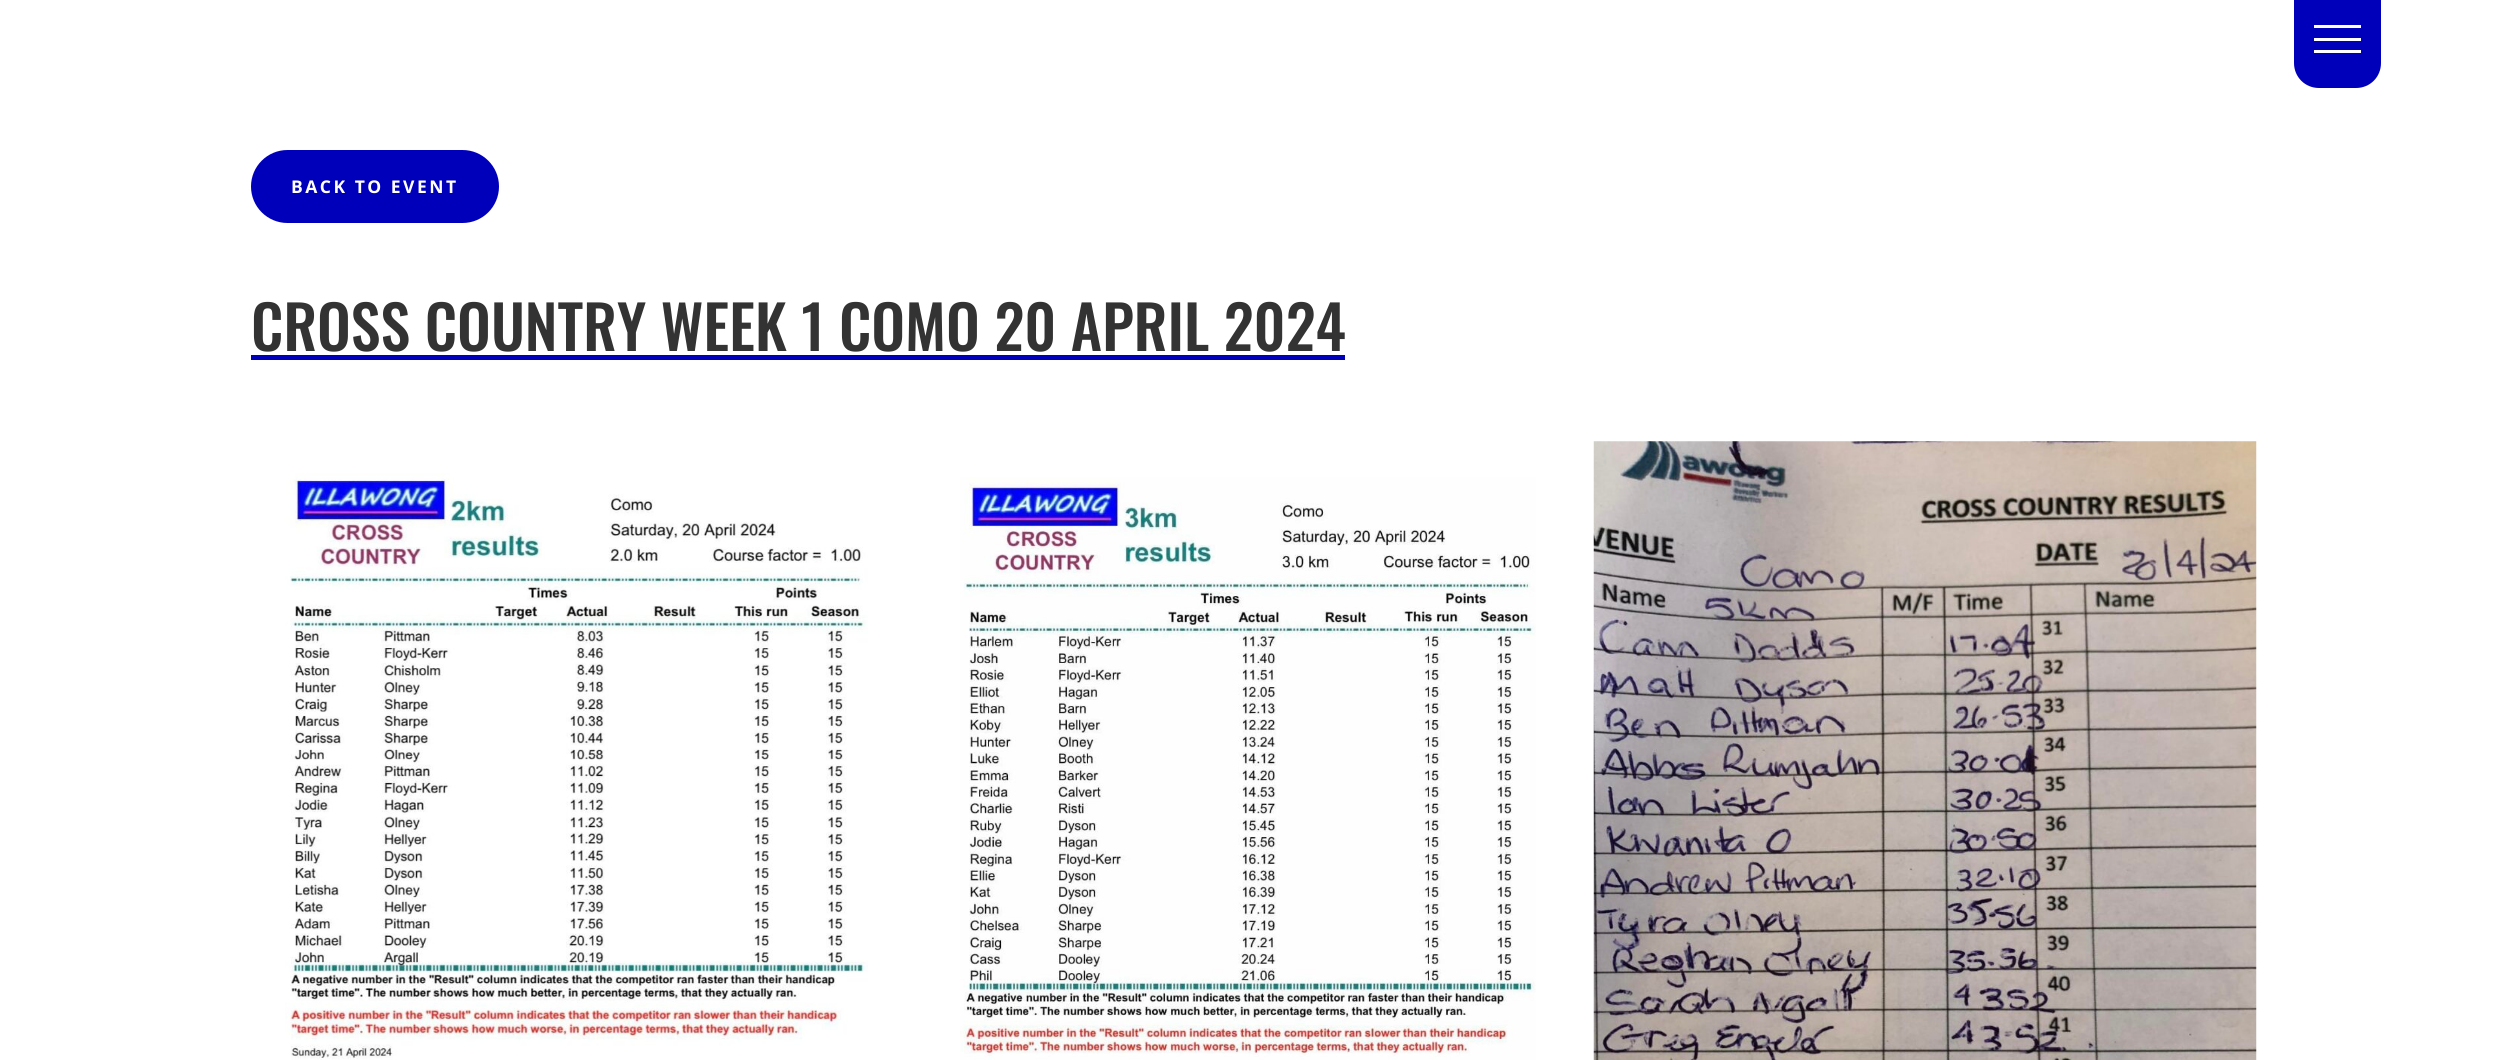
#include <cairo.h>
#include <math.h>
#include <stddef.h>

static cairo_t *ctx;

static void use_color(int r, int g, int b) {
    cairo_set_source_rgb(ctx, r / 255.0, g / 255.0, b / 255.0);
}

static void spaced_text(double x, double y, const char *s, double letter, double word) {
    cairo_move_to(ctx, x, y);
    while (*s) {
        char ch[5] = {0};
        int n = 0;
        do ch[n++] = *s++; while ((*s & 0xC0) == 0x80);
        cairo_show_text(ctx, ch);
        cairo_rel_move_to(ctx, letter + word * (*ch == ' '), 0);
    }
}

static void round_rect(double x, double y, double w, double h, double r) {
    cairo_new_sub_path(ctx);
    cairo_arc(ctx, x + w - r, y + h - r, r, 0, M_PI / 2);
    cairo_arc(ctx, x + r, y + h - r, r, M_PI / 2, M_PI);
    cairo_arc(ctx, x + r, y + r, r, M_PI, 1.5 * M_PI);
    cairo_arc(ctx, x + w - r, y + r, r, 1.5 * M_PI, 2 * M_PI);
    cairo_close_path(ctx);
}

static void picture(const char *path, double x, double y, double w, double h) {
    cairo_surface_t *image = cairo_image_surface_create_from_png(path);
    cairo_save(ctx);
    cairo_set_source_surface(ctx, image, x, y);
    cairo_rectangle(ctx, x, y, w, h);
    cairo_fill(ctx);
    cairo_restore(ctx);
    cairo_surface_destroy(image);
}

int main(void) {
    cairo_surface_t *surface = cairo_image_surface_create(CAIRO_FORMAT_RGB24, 2506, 1060);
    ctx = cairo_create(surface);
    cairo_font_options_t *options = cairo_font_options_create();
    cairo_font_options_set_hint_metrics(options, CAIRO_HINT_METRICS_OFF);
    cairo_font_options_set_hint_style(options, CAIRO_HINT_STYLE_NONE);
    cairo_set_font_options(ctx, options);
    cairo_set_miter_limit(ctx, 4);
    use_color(255, 255, 255);
    cairo_paint(ctx);
    use_color(0, 0, 187);
    cairo_new_path(ctx);
    cairo_move_to(ctx, 2294, 0);
    cairo_line_to(ctx, 2381, 0);
    cairo_line_to(ctx, 2381, 63);
    cairo_curve_to(ctx, 2381, 77, 2370, 88, 2356, 88);
    cairo_line_to(ctx, 2319, 88);
    cairo_curve_to(ctx, 2305, 88, 2294, 77, 2294, 63);
    cairo_close_path(ctx);
    cairo_fill(ctx);
    use_color(255, 255, 255);
    cairo_rectangle(ctx, 2314, 25, 47, 3);
    cairo_fill(ctx);
    cairo_rectangle(ctx, 2314, 38, 47, 3);
    cairo_fill(ctx);
    cairo_rectangle(ctx, 2314, 50, 47, 3);
    cairo_fill(ctx);
    use_color(0, 0, 187);
    round_rect(251, 150, 248, 73, 36.5);
    cairo_fill(ctx);
    cairo_select_font_face(ctx, "Open Sans", CAIRO_FONT_SLANT_NORMAL, CAIRO_FONT_WEIGHT_BOLD);
    cairo_set_font_size(ctx, 17.5);
    use_color(255, 255, 255);
    spaced_text(291, 193, "BACK TO EVENT", 2.5, 0);
    cairo_select_font_face(ctx, "Oswald Medium", CAIRO_FONT_SLANT_NORMAL, CAIRO_FONT_WEIGHT_NORMAL);
    cairo_set_font_size(ctx, 60);
    use_color(51, 51, 51);
    cairo_move_to(ctx, 251, 351);
    cairo_show_text(ctx, "CROSS COUNTRY WEEK 1 COMO 20 APRIL 2024");
    use_color(0, 0, 187);
    cairo_rectangle(ctx, 251, 355, 1094, 5);
    cairo_fill(ctx);
    picture("img1.png", 285, 473, 583, 587);
    picture("img2.png", 960, 477, 576, 583);
    picture("img3.png", 1593, 441, 664, 619);
    cairo_surface_write_to_png(surface, "result.png");
    cairo_font_options_destroy(options);
    cairo_destroy(ctx);
    cairo_surface_destroy(surface);
    return 0;
}
